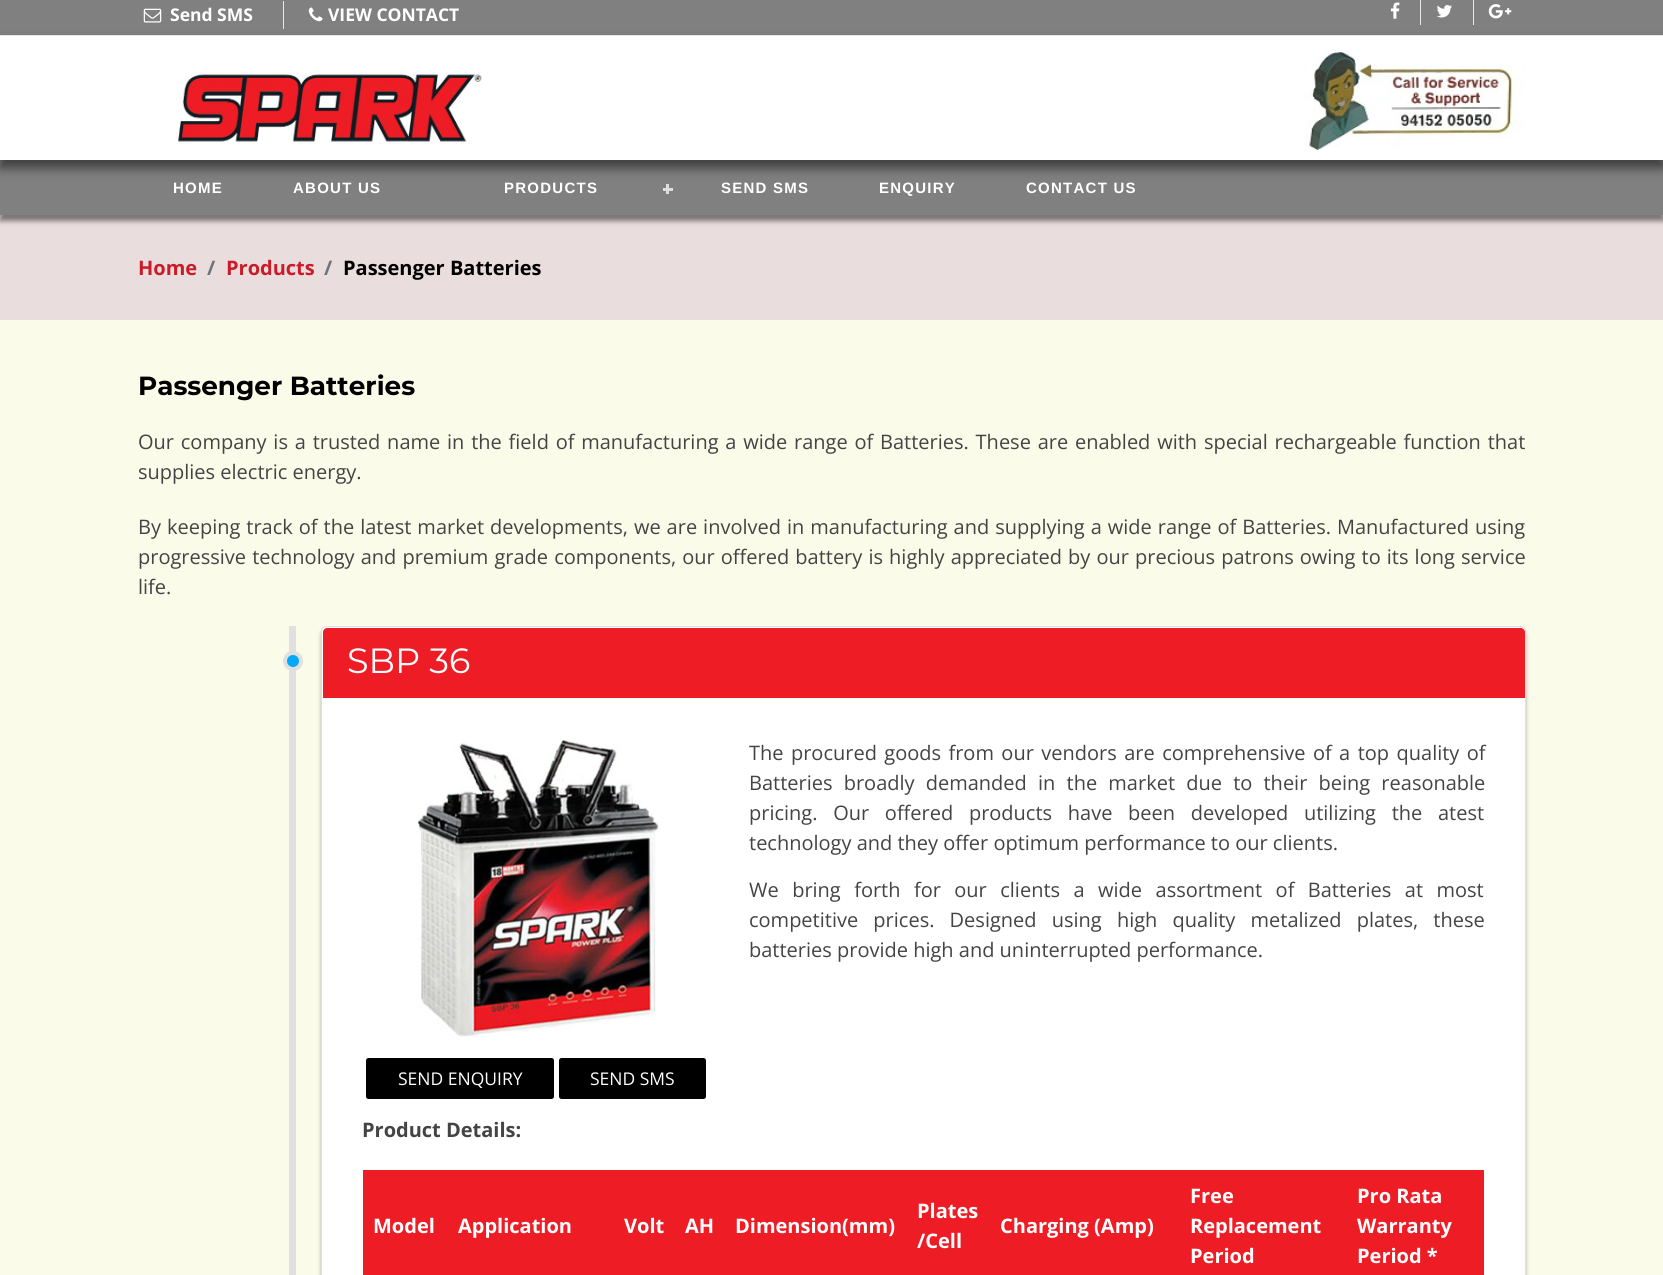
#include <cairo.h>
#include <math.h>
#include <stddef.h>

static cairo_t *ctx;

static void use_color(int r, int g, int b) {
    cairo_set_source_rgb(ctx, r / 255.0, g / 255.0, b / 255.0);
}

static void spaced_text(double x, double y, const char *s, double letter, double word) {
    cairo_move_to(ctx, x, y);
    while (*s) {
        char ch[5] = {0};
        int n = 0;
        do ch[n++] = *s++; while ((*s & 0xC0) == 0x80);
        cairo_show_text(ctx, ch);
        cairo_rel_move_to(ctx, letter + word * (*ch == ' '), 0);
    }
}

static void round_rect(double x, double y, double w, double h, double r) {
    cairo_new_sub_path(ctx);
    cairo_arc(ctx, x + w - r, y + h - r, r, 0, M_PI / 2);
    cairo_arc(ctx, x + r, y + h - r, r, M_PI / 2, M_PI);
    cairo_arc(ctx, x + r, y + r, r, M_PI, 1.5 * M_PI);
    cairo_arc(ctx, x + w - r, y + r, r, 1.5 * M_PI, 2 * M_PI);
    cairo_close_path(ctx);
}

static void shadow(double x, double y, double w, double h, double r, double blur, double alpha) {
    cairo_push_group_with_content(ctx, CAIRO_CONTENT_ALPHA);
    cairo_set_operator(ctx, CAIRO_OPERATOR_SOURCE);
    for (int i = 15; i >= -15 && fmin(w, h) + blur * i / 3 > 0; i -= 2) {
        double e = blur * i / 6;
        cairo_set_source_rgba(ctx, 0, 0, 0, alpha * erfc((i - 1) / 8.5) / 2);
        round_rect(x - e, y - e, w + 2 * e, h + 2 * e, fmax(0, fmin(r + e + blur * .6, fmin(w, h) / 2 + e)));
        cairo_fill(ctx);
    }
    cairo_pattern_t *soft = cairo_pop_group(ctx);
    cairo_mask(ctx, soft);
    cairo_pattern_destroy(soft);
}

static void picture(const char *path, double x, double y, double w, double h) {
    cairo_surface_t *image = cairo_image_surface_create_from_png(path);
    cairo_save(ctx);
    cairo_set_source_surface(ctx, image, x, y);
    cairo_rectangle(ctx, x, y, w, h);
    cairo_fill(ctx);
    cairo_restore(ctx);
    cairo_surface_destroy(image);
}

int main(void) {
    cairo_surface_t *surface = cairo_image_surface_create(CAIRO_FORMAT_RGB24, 1663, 1275);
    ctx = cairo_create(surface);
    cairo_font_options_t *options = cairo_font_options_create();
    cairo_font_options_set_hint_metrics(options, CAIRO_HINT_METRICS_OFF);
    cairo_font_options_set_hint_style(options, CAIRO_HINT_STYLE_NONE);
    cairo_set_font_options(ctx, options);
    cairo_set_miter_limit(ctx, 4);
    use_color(234, 221, 221);
    cairo_paint(ctx);
    use_color(128, 128, 128);
    cairo_rectangle(ctx, 0, 0, 1663, 35);
    cairo_fill(ctx);
    use_color(238, 238, 238);
    cairo_rectangle(ctx, 0, 35, 1663, 1);
    cairo_fill(ctx);
    picture("img1.png", 143, 8, 19, 15);
    cairo_select_font_face(ctx, "Open Sans", CAIRO_FONT_SLANT_NORMAL, CAIRO_FONT_WEIGHT_BOLD);
    cairo_set_font_size(ctx, 17.5);
    use_color(255, 255, 255);
    cairo_move_to(ctx, 170, 21);
    cairo_show_text(ctx, "Send SMS");
    use_color(233, 233, 233);
    cairo_rectangle(ctx, 283, 1, 1, 28);
    cairo_fill(ctx);
    picture("img2.png", 308, 7, 15, 15);
    use_color(255, 255, 255);
    cairo_move_to(ctx, 328, 21);
    cairo_show_text(ctx, "VIEW CONTACT");
    picture("img3.png", 1390, 2, 10, 17);
    use_color(233, 233, 233);
    cairo_rectangle(ctx, 1420, 0, 1, 25);
    cairo_fill(ctx);
    picture("img4.png", 1437, 5, 15, 13);
    cairo_rectangle(ctx, 1473, 0, 1, 25);
    cairo_fill(ctx);
    picture("img5.png", 1488, 4, 24, 15);
    use_color(0, 0, 0);
    shadow(0, 166, 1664, 55, 0, 2.5, 0.47);
    use_color(128, 128, 128);
    cairo_rectangle(ctx, 0, 160, 1663, 55);
    cairo_fill(ctx);
    use_color(221, 221, 221);
    cairo_rectangle(ctx, 666, 184, 3, 10);
    cairo_fill(ctx);
    use_color(0, 0, 0);
    shadow(0, 44, 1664, 124, 0, 5.5, 0.52);
    use_color(255, 255, 255);
    cairo_rectangle(ctx, 0, 36, 1663, 124);
    cairo_fill(ctx);
    picture("img6.png", 178, 74, 304, 68);
    picture("img7.png", 1304, 50, 222, 100);
    cairo_select_font_face(ctx, "Liberation Sans", CAIRO_FONT_SLANT_NORMAL, CAIRO_FONT_WEIGHT_BOLD);
    cairo_set_font_size(ctx, 15);
    spaced_text(173, 193, "HOME", 1.25, 0);
    spaced_text(293, 193, "ABOUT US", 1.25, 0);
    spaced_text(504, 193, "PRODUCTS", 1.25, 0);
    use_color(221, 221, 221);
    cairo_rectangle(ctx, 663, 188, 10, 3);
    cairo_fill(ctx);
    use_color(255, 255, 255);
    spaced_text(721, 193, "SEND SMS", 1.25, 0);
    spaced_text(879, 193, "ENQUIRY", 1.25, 0);
    spaced_text(1026, 193, "CONTACT US", 1.25, 0);
    cairo_select_font_face(ctx, "Open Sans", CAIRO_FONT_SLANT_NORMAL, CAIRO_FONT_WEIGHT_BOLD);
    cairo_set_font_size(ctx, 20);
    use_color(202, 28, 40);
    cairo_move_to(ctx, 138, 275);
    cairo_show_text(ctx, "Home");
    use_color(108, 117, 125);
    cairo_move_to(ctx, 207, 275);
    cairo_show_text(ctx, "/");
    use_color(202, 28, 40);
    cairo_move_to(ctx, 226, 275);
    cairo_show_text(ctx, "Products");
    use_color(108, 117, 125);
    cairo_move_to(ctx, 324, 275);
    cairo_show_text(ctx, "/");
    use_color(0, 0, 0);
    cairo_move_to(ctx, 343, 275);
    cairo_show_text(ctx, "Passenger Batteries");
    use_color(251, 251, 234);
    cairo_rectangle(ctx, 0, 320, 1663, 955);
    cairo_fill(ctx);
    cairo_select_font_face(ctx, "Montserrat", CAIRO_FONT_SLANT_NORMAL, CAIRO_FONT_WEIGHT_BOLD);
    cairo_set_font_size(ctx, 26.25);
    use_color(0, 0, 0);
    cairo_move_to(ctx, 138, 395);
    cairo_show_text(ctx, "Passenger Batteries");
    cairo_select_font_face(ctx, "Open Sans", CAIRO_FONT_SLANT_NORMAL, CAIRO_FONT_WEIGHT_NORMAL);
    cairo_set_font_size(ctx, 20);
    use_color(68, 68, 68);
    spaced_text(138, 449, "Our company is a trusted name in the field of manufacturing a wide range of Batteries. These are enabled with special rechargeable function that", 0, 1.6);
    cairo_move_to(ctx, 138, 479);
    cairo_show_text(ctx, "supplies electric energy.");
    spaced_text(138, 534, "By keeping track of the latest market developments, we are involved in manufacturing and supplying a wide range of Batteries. Manufactured using", 0, 0.8);
    spaced_text(138, 564, "progressive technology and premium grade components, our offered battery is highly appreciated by our precious patrons owing to its long service", 0, 0.9);
    cairo_move_to(ctx, 138, 594);
    cairo_show_text(ctx, "life.");
    use_color(224, 224, 224);
    cairo_rectangle(ctx, 289, 626, 7, 649);
    cairo_fill(ctx);
    use_color(3, 169, 244);
    cairo_arc(ctx, 293, 661, 8, 0, 2 * M_PI);
    cairo_fill_preserve(ctx);
    use_color(224, 224, 224);
    cairo_set_line_width(ctx, 4);
    cairo_stroke(ctx);
    use_color(0, 0, 0);
    shadow(321, 630, 1205, 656, 5, 2, 0.29);
    use_color(255, 255, 255);
    round_rect(321, 626, 1205, 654, 5);
    cairo_fill(ctx);
    round_rect(321.5, 626.5, 1204, 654, 4.5);
    cairo_set_source_rgba(ctx, 0, 0, 0, 0.12);
    cairo_set_line_width(ctx, 1);
    cairo_stroke(ctx);
    use_color(238, 28, 37);
    cairo_new_path(ctx);
    cairo_move_to(ctx, 327, 628);
    cairo_line_to(ctx, 1521, 628);
    cairo_curve_to(ctx, 1523, 628, 1525, 630, 1525, 632);
    cairo_line_to(ctx, 1525, 698);
    cairo_line_to(ctx, 323, 698);
    cairo_line_to(ctx, 323, 632);
    cairo_curve_to(ctx, 323, 630, 325, 628, 327, 628);
    cairo_close_path(ctx);
    cairo_fill(ctx);
    cairo_select_font_face(ctx, "Montserrat", CAIRO_FONT_SLANT_NORMAL, CAIRO_FONT_WEIGHT_NORMAL);
    cairo_set_font_size(ctx, 35);
    use_color(255, 255, 255);
    cairo_move_to(ctx, 347, 673);
    cairo_show_text(ctx, "SBP 36");
    cairo_select_font_face(ctx, "Open Sans", CAIRO_FONT_SLANT_NORMAL, CAIRO_FONT_WEIGHT_NORMAL);
    cairo_set_font_size(ctx, 20);
    use_color(68, 68, 68);
    spaced_text(749, 760, "The procured goods from our vendors are comprehensive of a top quality of", 0, 2.25);
    spaced_text(749, 790, "Batteries broadly demanded in the market due to their being reasonable", 0, 6);
    spaced_text(749, 820, "pricing. Our offered products have been developed utilizing the atest", 0, 10.5);
    cairo_move_to(ctx, 749, 850);
    cairo_show_text(ctx, "technology and they offer optimum performance to our clients.");
    spaced_text(749, 897, "We bring forth for our clients a wide assortment of Batteries at most", 0, 8.25);
    spaced_text(749, 927, "competitive prices. Designed using high quality metalized plates, these", 0, 10);
    cairo_move_to(ctx, 749, 957);
    cairo_show_text(ctx, "batteries provide high and uninterrupted performance.");
    picture("img8.png", 418, 740, 241, 297);
    use_color(0, 0, 0);
    round_rect(366, 1058, 188, 41, 2.5);
    cairo_fill(ctx);
    cairo_set_font_size(ctx, 17.5);
    use_color(255, 255, 255);
    cairo_move_to(ctx, 398, 1085);
    cairo_show_text(ctx, "SEND ENQUIRY");
    use_color(0, 0, 0);
    round_rect(559, 1058, 147, 41, 2.5);
    cairo_fill(ctx);
    use_color(255, 255, 255);
    cairo_move_to(ctx, 590, 1085);
    cairo_show_text(ctx, "SEND SMS");
    cairo_select_font_face(ctx, "Open Sans", CAIRO_FONT_SLANT_NORMAL, CAIRO_FONT_WEIGHT_BOLD);
    cairo_set_font_size(ctx, 20);
    use_color(68, 68, 68);
    cairo_move_to(ctx, 362, 1137);
    cairo_show_text(ctx, "Product Details:");
    use_color(238, 28, 37);
    cairo_rectangle(ctx, 363, 1170, 1121, 105);
    cairo_fill(ctx);
    use_color(255, 255, 255);
    cairo_move_to(ctx, 373, 1233);
    cairo_show_text(ctx, "Model");
    cairo_move_to(ctx, 458, 1233);
    cairo_show_text(ctx, "Application");
    cairo_move_to(ctx, 624, 1233);
    cairo_show_text(ctx, "Volt");
    cairo_move_to(ctx, 685, 1233);
    cairo_show_text(ctx, "AH");
    cairo_move_to(ctx, 735, 1233);
    cairo_show_text(ctx, "Dimension(mm)");
    cairo_move_to(ctx, 917, 1218);
    cairo_show_text(ctx, "Plates");
    cairo_move_to(ctx, 917, 1248);
    cairo_show_text(ctx, "/Cell");
    cairo_move_to(ctx, 1000, 1233);
    cairo_show_text(ctx, "Charging (Amp)");
    cairo_move_to(ctx, 1190, 1203);
    cairo_show_text(ctx, "Free");
    cairo_move_to(ctx, 1190, 1233);
    cairo_show_text(ctx, "Replacement");
    cairo_move_to(ctx, 1190, 1263);
    cairo_show_text(ctx, "Period");
    cairo_move_to(ctx, 1357, 1203);
    cairo_show_text(ctx, "Pro Rata");
    cairo_move_to(ctx, 1357, 1233);
    cairo_show_text(ctx, "Warranty");
    cairo_move_to(ctx, 1357, 1263);
    cairo_show_text(ctx, "Period *");
    cairo_surface_write_to_png(surface, "result.png");
    cairo_font_options_destroy(options);
    cairo_destroy(ctx);
    cairo_surface_destroy(surface);
    return 0;
}
